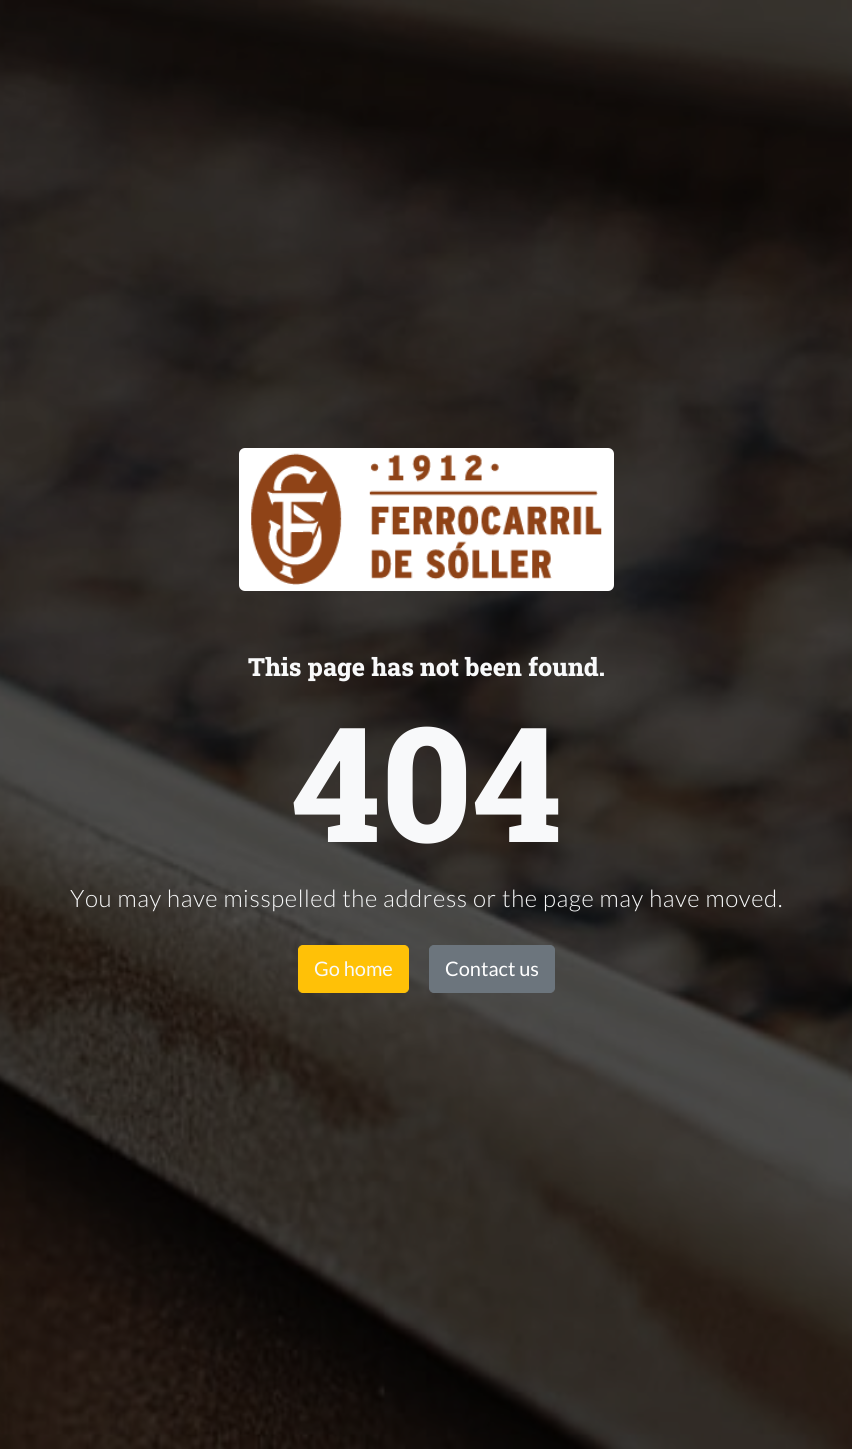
#include <cairo.h>
#include <math.h>
#include <stddef.h>

static cairo_t *ctx;

static void use_color(int r, int g, int b) {
    cairo_set_source_rgb(ctx, r / 255.0, g / 255.0, b / 255.0);
}

static void spaced_text(double x, double y, const char *s, double letter, double word) {
    cairo_move_to(ctx, x, y);
    while (*s) {
        char ch[5] = {0};
        int n = 0;
        do ch[n++] = *s++; while ((*s & 0xC0) == 0x80);
        cairo_show_text(ctx, ch);
        cairo_rel_move_to(ctx, letter + word * (*ch == ' '), 0);
    }
}

static void round_rect(double x, double y, double w, double h, double r) {
    cairo_new_sub_path(ctx);
    cairo_arc(ctx, x + w - r, y + h - r, r, 0, M_PI / 2);
    cairo_arc(ctx, x + r, y + h - r, r, M_PI / 2, M_PI);
    cairo_arc(ctx, x + r, y + r, r, M_PI, 1.5 * M_PI);
    cairo_arc(ctx, x + w - r, y + r, r, 1.5 * M_PI, 2 * M_PI);
    cairo_close_path(ctx);
}

static void picture(const char *path, double x, double y, double w, double h) {
    cairo_surface_t *image = cairo_image_surface_create_from_png(path);
    cairo_save(ctx);
    cairo_set_source_surface(ctx, image, x, y);
    cairo_rectangle(ctx, x, y, w, h);
    cairo_fill(ctx);
    cairo_restore(ctx);
    cairo_surface_destroy(image);
}

int main(void) {
    cairo_surface_t *surface = cairo_image_surface_create(CAIRO_FORMAT_RGB24, 852, 1449);
    ctx = cairo_create(surface);
    cairo_font_options_t *options = cairo_font_options_create();
    cairo_font_options_set_hint_metrics(options, CAIRO_HINT_METRICS_OFF);
    cairo_font_options_set_hint_style(options, CAIRO_HINT_STYLE_NONE);
    cairo_set_font_options(ctx, options);
    cairo_set_miter_limit(ctx, 4);
    use_color(255, 255, 255);
    cairo_paint(ctx);
    picture("img1.png", 0, 0, 852, 1449);
    use_color(255, 255, 255);
    round_rect(239, 448, 375, 143, 6);
    cairo_fill(ctx);
    picture("img2.png", 251, 453, 351, 132);
    cairo_select_font_face(ctx, "Roboto Slab ExtraBold", CAIRO_FONT_SLANT_NORMAL, CAIRO_FONT_WEIGHT_NORMAL);
    cairo_set_font_size(ctx, 25);
    use_color(248, 249, 250);
    cairo_move_to(ctx, 248, 676);
    cairo_show_text(ctx, "This page has not been found.");
    cairo_set_font_size(ctx, 160);
    cairo_move_to(ctx, 291, 842);
    cairo_show_text(ctx, "404");
    cairo_select_font_face(ctx, "Lato Light", CAIRO_FONT_SLANT_NORMAL, CAIRO_FONT_WEIGHT_NORMAL);
    cairo_set_font_size(ctx, 24);
    spaced_text(70, 907, "You may have misspelled the address or the page may have moved.", 0.62, 0);
    use_color(255, 193, 7);
    round_rect(298.5, 945.5, 110, 47, 4.5);
    cairo_fill_preserve(ctx);
    cairo_set_line_width(ctx, 1);
    cairo_stroke(ctx);
    cairo_select_font_face(ctx, "Lato", CAIRO_FONT_SLANT_NORMAL, CAIRO_FONT_WEIGHT_NORMAL);
    cairo_set_font_size(ctx, 20);
    use_color(248, 249, 250);
    cairo_move_to(ctx, 314, 976);
    cairo_show_text(ctx, "Go home");
    use_color(108, 117, 125);
    round_rect(429.5, 945.5, 125, 47, 4.5);
    cairo_fill_preserve(ctx);
    cairo_stroke(ctx);
    use_color(255, 255, 255);
    cairo_move_to(ctx, 445, 976);
    cairo_show_text(ctx, "Contact us");
    cairo_surface_write_to_png(surface, "result.png");
    cairo_font_options_destroy(options);
    cairo_destroy(ctx);
    cairo_surface_destroy(surface);
    return 0;
}
